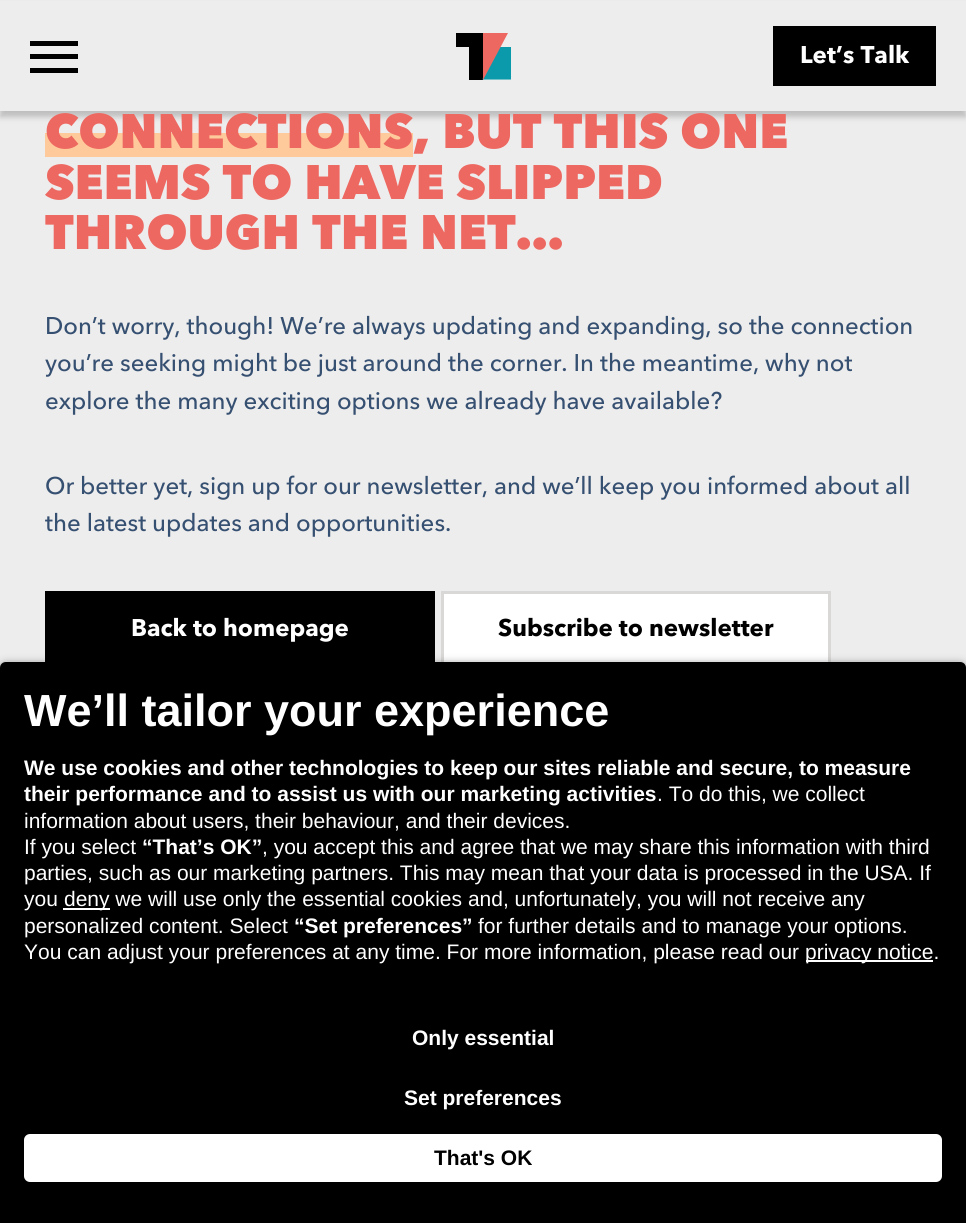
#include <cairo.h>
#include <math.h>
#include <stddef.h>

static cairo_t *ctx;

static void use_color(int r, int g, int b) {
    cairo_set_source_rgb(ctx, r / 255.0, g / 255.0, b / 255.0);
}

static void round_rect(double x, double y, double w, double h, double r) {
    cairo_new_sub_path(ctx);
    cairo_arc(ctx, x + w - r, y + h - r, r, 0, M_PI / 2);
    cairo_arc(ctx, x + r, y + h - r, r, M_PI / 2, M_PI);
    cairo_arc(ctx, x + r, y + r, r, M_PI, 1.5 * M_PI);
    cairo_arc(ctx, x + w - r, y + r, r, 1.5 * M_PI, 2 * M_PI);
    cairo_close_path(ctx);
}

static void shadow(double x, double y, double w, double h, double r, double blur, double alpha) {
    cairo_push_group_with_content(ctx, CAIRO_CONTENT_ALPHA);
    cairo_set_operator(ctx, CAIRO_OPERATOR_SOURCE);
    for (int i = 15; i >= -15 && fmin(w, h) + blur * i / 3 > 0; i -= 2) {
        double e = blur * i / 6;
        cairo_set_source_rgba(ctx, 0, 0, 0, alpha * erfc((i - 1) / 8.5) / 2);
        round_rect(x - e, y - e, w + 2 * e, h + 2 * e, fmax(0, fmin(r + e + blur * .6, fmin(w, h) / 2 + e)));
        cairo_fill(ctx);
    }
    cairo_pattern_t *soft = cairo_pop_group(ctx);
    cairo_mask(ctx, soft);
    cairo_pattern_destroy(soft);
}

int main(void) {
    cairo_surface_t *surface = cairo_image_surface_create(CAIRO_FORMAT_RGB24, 966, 1223);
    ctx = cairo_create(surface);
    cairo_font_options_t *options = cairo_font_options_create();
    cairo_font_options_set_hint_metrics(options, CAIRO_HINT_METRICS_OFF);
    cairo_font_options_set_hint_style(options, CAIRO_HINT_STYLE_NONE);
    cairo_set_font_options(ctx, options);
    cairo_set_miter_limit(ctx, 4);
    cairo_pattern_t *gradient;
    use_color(238, 237, 237);
    cairo_paint(ctx);
    use_color(0, 0, 0);
    shadow(0, 6, 966, 111, 0, 3, 0.2);
    use_color(238, 237, 237);
    cairo_rectangle(ctx, 0, 1, 966, 110);
    cairo_fill(ctx);
    use_color(0, 0, 0);
    cairo_rectangle(ctx, 30, 41, 48, 5);
    cairo_fill(ctx);
    cairo_rectangle(ctx, 30, 54, 48, 5);
    cairo_fill(ctx);
    cairo_rectangle(ctx, 30, 68, 48, 5);
    cairo_fill(ctx);
    cairo_new_path(ctx);
    cairo_move_to(ctx, 483, 33);
    cairo_line_to(ctx, 483, 80);
    cairo_line_to(ctx, 469, 80);
    cairo_line_to(ctx, 469, 47);
    cairo_line_to(ctx, 456, 47);
    cairo_line_to(ctx, 456, 33);
    cairo_close_path(ctx);
    cairo_fill(ctx);
    use_color(11, 154, 171);
    cairo_new_path(ctx);
    cairo_move_to(ctx, 489.5, 52.5);
    cairo_line_to(ctx, 482.5, 79.5);
    cairo_line_to(ctx, 511, 79.5);
    cairo_line_to(ctx, 511, 47);
    cairo_line_to(ctx, 500, 47);
    cairo_close_path(ctx);
    cairo_fill(ctx);
    use_color(237, 104, 97);
    cairo_new_path(ctx);
    cairo_move_to(ctx, 483, 33);
    cairo_line_to(ctx, 483, 80);
    cairo_line_to(ctx, 508, 33);
    cairo_close_path(ctx);
    cairo_fill(ctx);
    use_color(0, 0, 0);
    cairo_rectangle(ctx, 773, 26, 163, 60);
    cairo_fill(ctx);
    cairo_select_font_face(ctx, "Avenir Next", CAIRO_FONT_SLANT_NORMAL, CAIRO_FONT_WEIGHT_BOLD);
    cairo_set_font_size(ctx, 24);
    use_color(255, 255, 255);
    cairo_move_to(ctx, 800, 63);
    cairo_show_text(ctx, "Let’s Talk");
    gradient = cairo_pattern_create_linear(229, 100, 229, 167);
    cairo_pattern_add_color_stop_rgba(gradient, 0, 0, 0, 0, 0);
    cairo_pattern_add_color_stop_rgba(gradient, 0.5, 1, 0.792, 0.608, 0);
    cairo_pattern_add_color_stop_rgba(gradient, 0.5, 1, 0.792, 0.608, 1);
    cairo_pattern_add_color_stop_rgba(gradient, 0.85, 1, 0.792, 0.608, 1);
    cairo_pattern_add_color_stop_rgba(gradient, 0.85, 1, 0.792, 0.608, 0);
    cairo_pattern_add_color_stop_rgba(gradient, 1, 0, 0, 0, 0);
    cairo_set_source(ctx, gradient);
    cairo_pattern_destroy(gradient);
    cairo_rectangle(ctx, 45, 133, 368, 24);
    cairo_fill(ctx);
    cairo_select_font_face(ctx, "Avenir Next Black", CAIRO_FONT_SLANT_NORMAL, CAIRO_FONT_WEIGHT_NORMAL);
    cairo_set_font_size(ctx, 48);
    use_color(237, 104, 97);
    cairo_move_to(ctx, 45, 148);
    cairo_show_text(ctx, "CONNECTIONS, BUT THIS ONE");
    cairo_move_to(ctx, 45, 199);
    cairo_show_text(ctx, "SEEMS TO HAVE SLIPPED");
    cairo_move_to(ctx, 45, 249);
    cairo_show_text(ctx, "THROUGH THE NET…");
    cairo_select_font_face(ctx, "Avenir Next Medium", CAIRO_FONT_SLANT_NORMAL, CAIRO_FONT_WEIGHT_NORMAL);
    cairo_set_font_size(ctx, 24);
    use_color(54, 80, 114);
    cairo_move_to(ctx, 45, 334);
    cairo_show_text(ctx, "Don’t worry, though! We’re always updating and expanding, so the connection");
    cairo_move_to(ctx, 45, 371);
    cairo_show_text(ctx, "you’re seeking might be just around the corner. In the meantime, why not");
    cairo_move_to(ctx, 45, 409);
    cairo_show_text(ctx, "explore the many exciting options we already have available?");
    cairo_move_to(ctx, 45, 494);
    cairo_show_text(ctx, "Or better yet, sign up for our newsletter, and we’ll keep you informed about all");
    cairo_move_to(ctx, 45, 531);
    cairo_show_text(ctx, "the latest updates and opportunities.");
    use_color(0, 0, 0);
    cairo_rectangle(ctx, 45, 591, 390, 71);
    cairo_fill(ctx);
    cairo_select_font_face(ctx, "Avenir Next", CAIRO_FONT_SLANT_NORMAL, CAIRO_FONT_WEIGHT_BOLD);
    use_color(255, 255, 255);
    cairo_move_to(ctx, 131, 636);
    cairo_show_text(ctx, "Back to homepage");
    cairo_rectangle(ctx, 444, 594, 384, 68);
    cairo_fill(ctx);
    cairo_rectangle(ctx, 442.5, 592.5, 387, 72);
    use_color(217, 216, 214);
    cairo_set_line_width(ctx, 3);
    cairo_stroke(ctx);
    use_color(0, 0, 0);
    cairo_move_to(ctx, 498, 636);
    cairo_show_text(ctx, "Subscribe to newsletter");
    use_color(0, 0, 0);
    shadow(0, 666, 966, 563, 6, 5, 0.8);
    use_color(0, 0, 0);
    cairo_new_path(ctx);
    cairo_move_to(ctx, 6, 662);
    cairo_line_to(ctx, 960, 662);
    cairo_curve_to(ctx, 963.5, 662, 966, 664.5, 966, 668);
    cairo_line_to(ctx, 966, 996);
    cairo_line_to(ctx, 0, 996);
    cairo_line_to(ctx, 0, 668);
    cairo_curve_to(ctx, 0, 664.5, 2.5, 662, 6, 662);
    cairo_close_path(ctx);
    cairo_fill(ctx);
    cairo_select_font_face(ctx, "Liberation Sans", CAIRO_FONT_SLANT_NORMAL, CAIRO_FONT_WEIGHT_BOLD);
    cairo_set_font_size(ctx, 45);
    use_color(255, 255, 255);
    cairo_move_to(ctx, 24, 726);
    cairo_show_text(ctx, "We’ll tailor your experience");
    cairo_set_font_size(ctx, 21);
    cairo_move_to(ctx, 24, 775);
    cairo_show_text(ctx, "We use cookies and other technologies to keep our sites reliable and secure, to measure");
    cairo_move_to(ctx, 24, 801);
    cairo_show_text(ctx, "their performance and to assist us with our marketing activities");
    cairo_select_font_face(ctx, "Liberation Sans", CAIRO_FONT_SLANT_NORMAL, CAIRO_FONT_WEIGHT_NORMAL);
    cairo_move_to(ctx, 657, 801);
    cairo_show_text(ctx, ". To do this, we collect");
    cairo_move_to(ctx, 24, 828);
    cairo_show_text(ctx, "information about users, their behaviour, and their devices.");
    cairo_move_to(ctx, 24, 854);
    cairo_show_text(ctx, "If you select");
    cairo_select_font_face(ctx, "Liberation Sans", CAIRO_FONT_SLANT_NORMAL, CAIRO_FONT_WEIGHT_BOLD);
    cairo_move_to(ctx, 142, 854);
    cairo_show_text(ctx, "“That’s OK”");
    cairo_select_font_face(ctx, "Liberation Sans", CAIRO_FONT_SLANT_NORMAL, CAIRO_FONT_WEIGHT_NORMAL);
    cairo_move_to(ctx, 262, 854);
    cairo_show_text(ctx, ", you accept this and agree that we may share this information with third");
    cairo_move_to(ctx, 24, 880);
    cairo_show_text(ctx, "parties, such as our marketing partners. This may mean that your data is processed in the USA. If");
    cairo_move_to(ctx, 24, 906);
    cairo_show_text(ctx, "you");
    cairo_rectangle(ctx, 63, 908, 47, 2);
    cairo_fill(ctx);
    cairo_move_to(ctx, 64, 906);
    cairo_show_text(ctx, "deny we will use only the essential cookies and, unfortunately, you will not receive any");
    cairo_move_to(ctx, 24, 933);
    cairo_show_text(ctx, "personalized content. Select");
    cairo_select_font_face(ctx, "Liberation Sans", CAIRO_FONT_SLANT_NORMAL, CAIRO_FONT_WEIGHT_BOLD);
    cairo_move_to(ctx, 294, 933);
    cairo_show_text(ctx, "“Set preferences”");
    cairo_select_font_face(ctx, "Liberation Sans", CAIRO_FONT_SLANT_NORMAL, CAIRO_FONT_WEIGHT_NORMAL);
    cairo_move_to(ctx, 478, 933);
    cairo_show_text(ctx, "for further details and to manage your options.");
    cairo_move_to(ctx, 24, 959);
    cairo_show_text(ctx, "You can adjust your preferences at any time. For more information, please read our");
    cairo_rectangle(ctx, 806, 960, 127, 2);
    cairo_fill(ctx);
    cairo_move_to(ctx, 805, 959);
    cairo_show_text(ctx, "privacy notice.");
    use_color(0, 0, 0);
    cairo_rectangle(ctx, 0, 996, 966, 227);
    cairo_fill(ctx);
    cairo_select_font_face(ctx, "Liberation Sans", CAIRO_FONT_SLANT_NORMAL, CAIRO_FONT_WEIGHT_BOLD);
    use_color(255, 255, 255);
    cairo_move_to(ctx, 412, 1045);
    cairo_show_text(ctx, "Only essential");
    cairo_move_to(ctx, 404, 1105);
    cairo_show_text(ctx, "Set preferences");
    round_rect(24, 1134, 918, 48, 6);
    cairo_fill(ctx);
    use_color(0, 0, 0);
    cairo_move_to(ctx, 434, 1165);
    cairo_show_text(ctx, "That's OK");
    cairo_surface_write_to_png(surface, "result.png");
    cairo_font_options_destroy(options);
    cairo_destroy(ctx);
    cairo_surface_destroy(surface);
    return 0;
}
